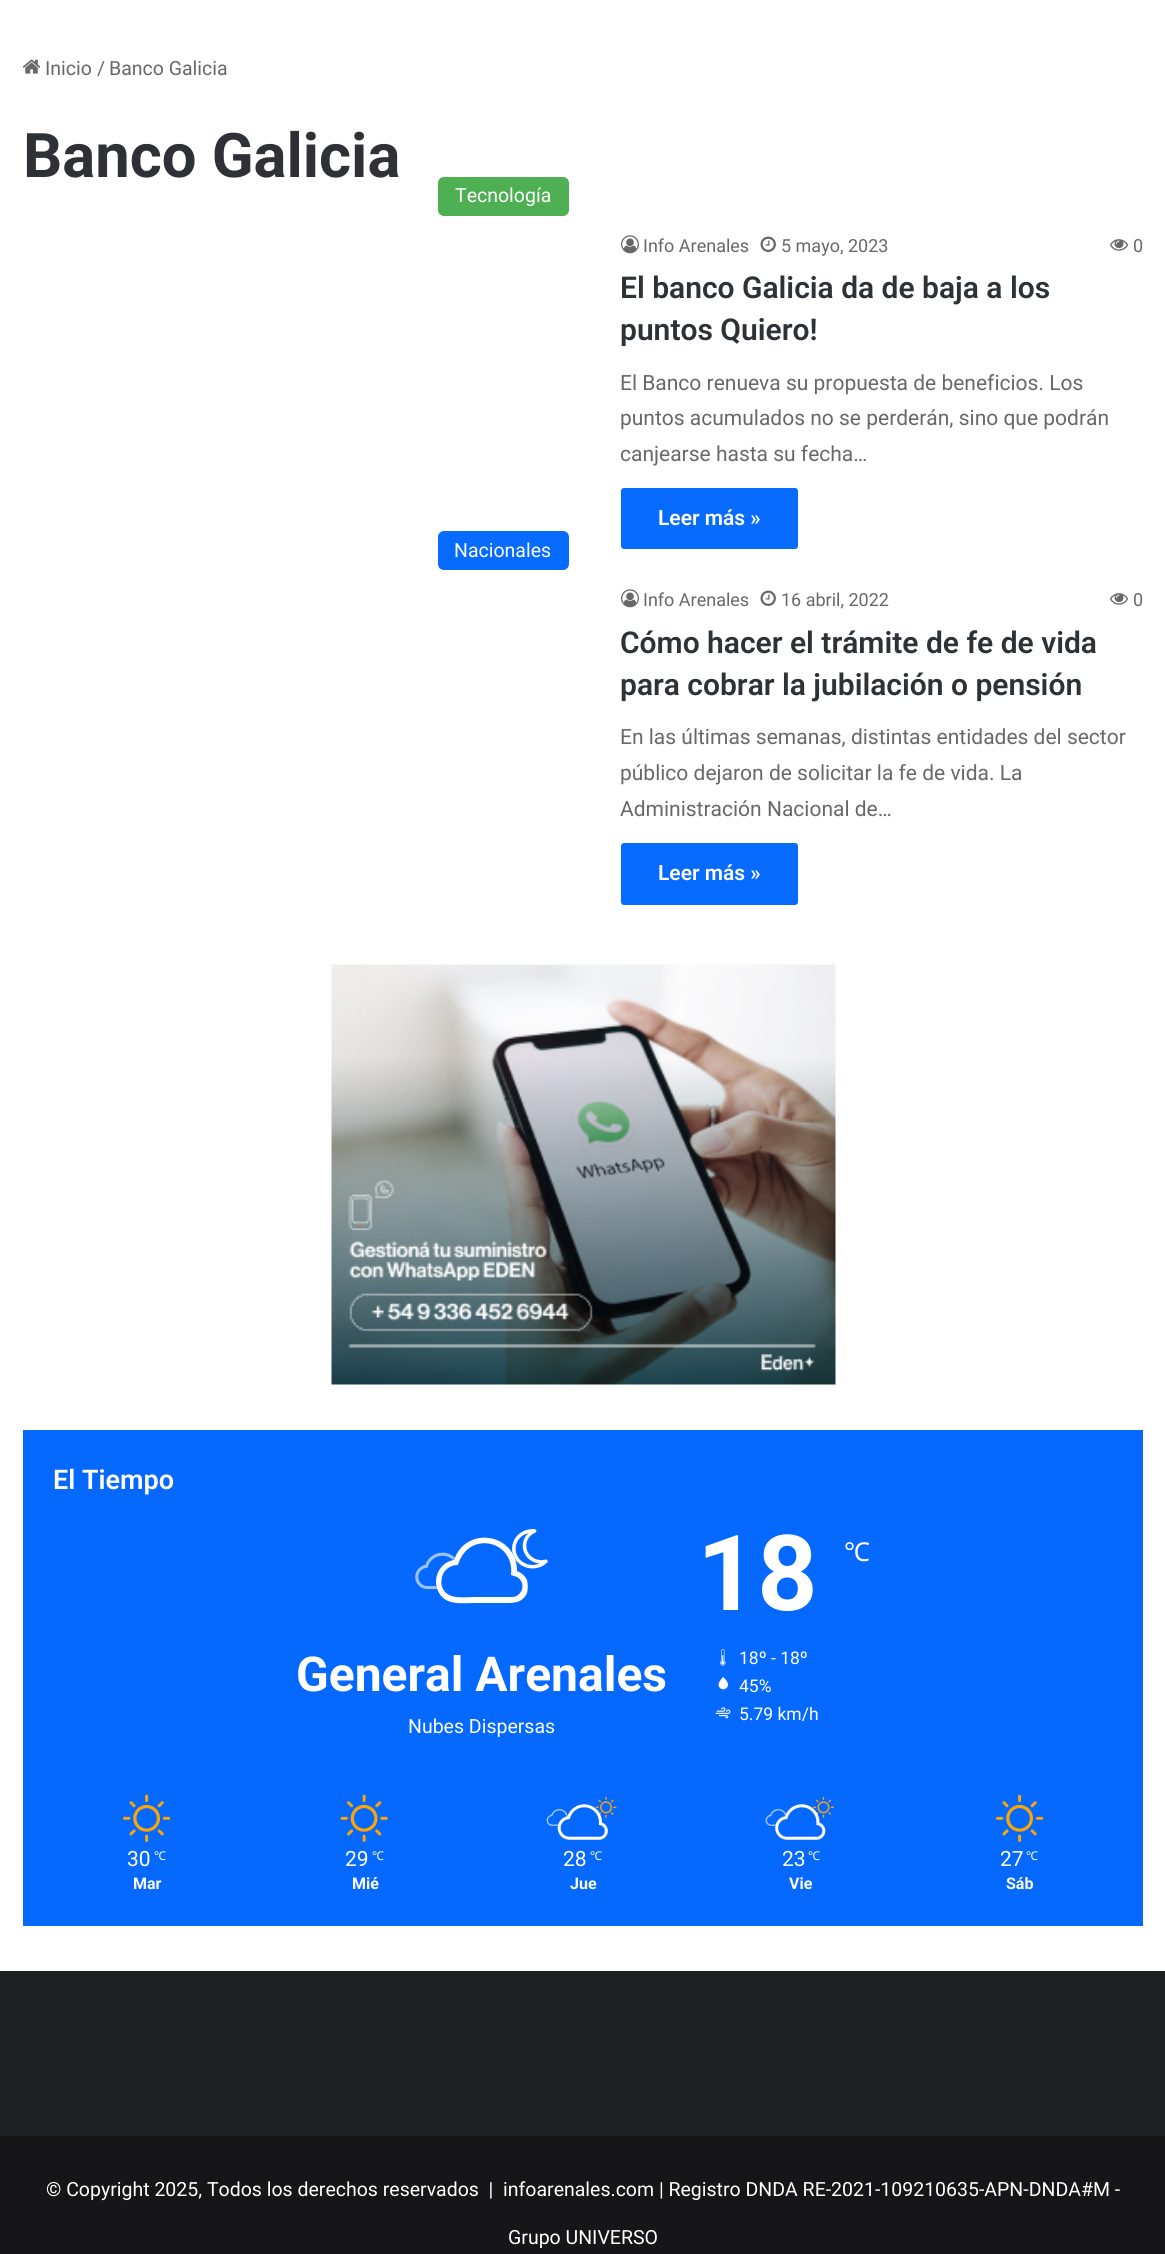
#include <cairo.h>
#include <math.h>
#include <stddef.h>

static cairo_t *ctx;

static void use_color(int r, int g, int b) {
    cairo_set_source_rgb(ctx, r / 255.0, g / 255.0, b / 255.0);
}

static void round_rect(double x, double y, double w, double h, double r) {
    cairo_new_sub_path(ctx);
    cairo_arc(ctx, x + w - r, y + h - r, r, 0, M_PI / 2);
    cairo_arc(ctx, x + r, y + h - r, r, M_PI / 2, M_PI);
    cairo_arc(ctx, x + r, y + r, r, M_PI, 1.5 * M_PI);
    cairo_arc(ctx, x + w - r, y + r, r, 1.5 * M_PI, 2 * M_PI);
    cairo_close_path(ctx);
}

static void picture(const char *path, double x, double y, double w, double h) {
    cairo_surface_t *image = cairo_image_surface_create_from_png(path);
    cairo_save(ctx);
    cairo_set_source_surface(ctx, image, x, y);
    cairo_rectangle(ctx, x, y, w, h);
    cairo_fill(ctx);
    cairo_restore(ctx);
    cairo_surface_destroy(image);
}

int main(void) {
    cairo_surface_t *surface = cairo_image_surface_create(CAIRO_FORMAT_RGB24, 1165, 2254);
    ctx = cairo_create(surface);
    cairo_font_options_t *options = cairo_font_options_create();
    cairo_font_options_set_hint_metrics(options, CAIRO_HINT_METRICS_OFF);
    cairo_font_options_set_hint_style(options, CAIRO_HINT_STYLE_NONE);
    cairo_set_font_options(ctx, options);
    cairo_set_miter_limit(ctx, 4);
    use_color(255, 255, 255);
    cairo_paint(ctx);
    picture("img1.png", 22, 59, 19, 15);
    cairo_select_font_face(ctx, "Roboto", CAIRO_FONT_SLANT_NORMAL, CAIRO_FONT_WEIGHT_NORMAL);
    cairo_set_font_size(ctx, 19.5);
    use_color(104, 104, 104);
    cairo_move_to(ctx, 45, 75);
    cairo_show_text(ctx, "Inicio");
    cairo_move_to(ctx, 97, 75);
    cairo_show_text(ctx, "/");
    cairo_move_to(ctx, 109, 75);
    cairo_show_text(ctx, "Banco Galicia");
    cairo_select_font_face(ctx, "Roboto", CAIRO_FONT_SLANT_NORMAL, CAIRO_FONT_WEIGHT_BOLD);
    cairo_set_font_size(ctx, 61.5);
    use_color(46, 49, 54);
    cairo_move_to(ctx, 23, 177);
    cairo_show_text(ctx, "Banco Galicia");
    use_color(78, 176, 82);
    round_rect(438, 177, 131, 39, 6);
    cairo_fill(ctx);
    cairo_select_font_face(ctx, "Roboto", CAIRO_FONT_SLANT_NORMAL, CAIRO_FONT_WEIGHT_NORMAL);
    cairo_set_font_size(ctx, 19.5);
    use_color(255, 255, 255);
    cairo_move_to(ctx, 455, 202);
    cairo_show_text(ctx, "Tecnología");
    picture("img2.png", 621, 235, 18, 19);
    cairo_set_font_size(ctx, 18);
    use_color(104, 104, 104);
    cairo_move_to(ctx, 643, 252);
    cairo_show_text(ctx, "Info Arenales");
    picture("img3.png", 760, 236, 16, 16);
    cairo_move_to(ctx, 781, 252);
    cairo_show_text(ctx, "5 mayo, 2023");
    picture("img4.png", 1110, 239, 18, 12);
    cairo_move_to(ctx, 1133, 252);
    cairo_show_text(ctx, "0");
    cairo_select_font_face(ctx, "Roboto SemiBold", CAIRO_FONT_SLANT_NORMAL, CAIRO_FONT_WEIGHT_NORMAL);
    cairo_set_font_size(ctx, 30);
    use_color(46, 49, 54);
    cairo_move_to(ctx, 620, 298);
    cairo_show_text(ctx, "El banco Galicia da de baja a los");
    cairo_move_to(ctx, 620, 340);
    cairo_show_text(ctx, "puntos Quiero!");
    cairo_select_font_face(ctx, "Roboto", CAIRO_FONT_SLANT_NORMAL, CAIRO_FONT_WEIGHT_NORMAL);
    cairo_set_font_size(ctx, 21);
    use_color(104, 104, 104);
    cairo_move_to(ctx, 620, 390);
    cairo_show_text(ctx, "El Banco renueva su propuesta de beneficios. Los");
    cairo_move_to(ctx, 620, 425);
    cairo_show_text(ctx, "puntos acumulados no se perderán, sino que podrán");
    cairo_move_to(ctx, 620, 461);
    cairo_show_text(ctx, "canjearse hasta su fecha…");
    use_color(8, 107, 255);
    round_rect(621, 488, 177, 61, 3);
    cairo_fill(ctx);
    cairo_select_font_face(ctx, "Roboto SemiBold", CAIRO_FONT_SLANT_NORMAL, CAIRO_FONT_WEIGHT_NORMAL);
    use_color(255, 255, 255);
    cairo_move_to(ctx, 658, 525);
    cairo_show_text(ctx, "Leer más »");
    use_color(8, 107, 255);
    round_rect(438, 531, 131, 39, 6);
    cairo_fill(ctx);
    cairo_select_font_face(ctx, "Roboto", CAIRO_FONT_SLANT_NORMAL, CAIRO_FONT_WEIGHT_NORMAL);
    cairo_set_font_size(ctx, 19.5);
    use_color(255, 255, 255);
    cairo_move_to(ctx, 454, 557);
    cairo_show_text(ctx, "Nacionales");
    picture("img2.png", 621, 589, 18, 19);
    cairo_set_font_size(ctx, 18);
    use_color(104, 104, 104);
    cairo_move_to(ctx, 643, 606);
    cairo_show_text(ctx, "Info Arenales");
    picture("img3.png", 760, 590, 16, 16);
    cairo_move_to(ctx, 781, 606);
    cairo_show_text(ctx, "16 abril, 2022");
    picture("img4.png", 1110, 593, 18, 12);
    cairo_move_to(ctx, 1133, 606);
    cairo_show_text(ctx, "0");
    cairo_select_font_face(ctx, "Roboto SemiBold", CAIRO_FONT_SLANT_NORMAL, CAIRO_FONT_WEIGHT_NORMAL);
    cairo_set_font_size(ctx, 30);
    use_color(46, 49, 54);
    cairo_move_to(ctx, 620, 653);
    cairo_show_text(ctx, "Cómo hacer el trámite de fe de vida");
    cairo_move_to(ctx, 620, 695);
    cairo_show_text(ctx, "para cobrar la jubilación o pensión");
    cairo_select_font_face(ctx, "Roboto", CAIRO_FONT_SLANT_NORMAL, CAIRO_FONT_WEIGHT_NORMAL);
    cairo_set_font_size(ctx, 21);
    use_color(104, 104, 104);
    cairo_move_to(ctx, 620, 744);
    cairo_show_text(ctx, "En las últimas semanas, distintas entidades del sector");
    cairo_move_to(ctx, 620, 780);
    cairo_show_text(ctx, "público dejaron de solicitar la fe de vida. La");
    cairo_move_to(ctx, 620, 816);
    cairo_show_text(ctx, "Administración Nacional de…");
    use_color(8, 107, 255);
    round_rect(621, 843, 177, 62, 3);
    cairo_fill(ctx);
    cairo_select_font_face(ctx, "Roboto SemiBold", CAIRO_FONT_SLANT_NORMAL, CAIRO_FONT_WEIGHT_NORMAL);
    use_color(255, 255, 255);
    cairo_move_to(ctx, 658, 880);
    cairo_show_text(ctx, "Leer más »");
    picture("img5.png", 331, 964, 505, 421);
    use_color(6, 105, 255);
    cairo_rectangle(ctx, 23, 1430, 1120, 496);
    cairo_fill(ctx);
    cairo_set_font_size(ctx, 27);
    use_color(255, 255, 255);
    cairo_move_to(ctx, 53, 1489);
    cairo_show_text(ctx, "El Tiempo");
    picture("img6.png", 415, 1552, 40, 38);
    picture("img7.png", 512, 1529, 36, 40);
    picture("img8.png", 436, 1552, 80, 38);
    cairo_new_path(ctx);
    cairo_move_to(ctx, 517, 1571);
    cairo_curve_to(ctx, 522, 1573, 525, 1576, 527, 1580);
    cairo_curve_to(ctx, 528, 1584, 528, 1589, 527, 1593);
    cairo_curve_to(ctx, 522, 1604, 512, 1603, 502, 1603);
    cairo_line_to(ctx, 475, 1603);
    cairo_curve_to(ctx, 461, 1603, 445, 1606, 438, 1591);
    cairo_curve_to(ctx, 432, 1578, 440, 1562, 454, 1560);
    cairo_curve_to(ctx, 466, 1525, 517, 1533, 517, 1571);
    cairo_close_path(ctx);
    cairo_move_to(ctx, 512, 1597);
    cairo_curve_to(ctx, 522, 1597, 527, 1583, 517, 1577);
    cairo_line_to(ctx, 511, 1575);
    cairo_curve_to(ctx, 515, 1540, 468, 1530, 458, 1565);
    cairo_curve_to(ctx, 451, 1565, 444, 1569, 442, 1577);
    cairo_curve_to(ctx, 441, 1581, 441, 1585, 443, 1589);
    cairo_curve_to(ctx, 449, 1600, 464, 1597, 475, 1597);
    cairo_close_path(ctx);
    cairo_fill(ctx);
    cairo_select_font_face(ctx, "Roboto", CAIRO_FONT_SLANT_NORMAL, CAIRO_FONT_WEIGHT_BOLD);
    cairo_set_font_size(ctx, 48);
    cairo_move_to(ctx, 296, 1691);
    cairo_show_text(ctx, "General Arenales");
    cairo_select_font_face(ctx, "Roboto", CAIRO_FONT_SLANT_NORMAL, CAIRO_FONT_WEIGHT_NORMAL);
    cairo_set_font_size(ctx, 19.5);
    cairo_move_to(ctx, 408, 1733);
    cairo_show_text(ctx, "Nubes Dispersas");
    cairo_select_font_face(ctx, "Roboto", CAIRO_FONT_SLANT_NORMAL, CAIRO_FONT_WEIGHT_BOLD);
    cairo_set_font_size(ctx, 105);
    cairo_move_to(ctx, 697, 1610);
    cairo_show_text(ctx, "18");
    cairo_select_font_face(ctx, "Noto Sans", CAIRO_FONT_SLANT_NORMAL, CAIRO_FONT_WEIGHT_NORMAL);
    cairo_set_font_size(ctx, 26);
    cairo_move_to(ctx, 844, 1561);
    cairo_show_text(ctx, "℃");
    picture("img9.png", 720, 1649, 6, 17);
    cairo_select_font_face(ctx, "Roboto", CAIRO_FONT_SLANT_NORMAL, CAIRO_FONT_WEIGHT_NORMAL);
    cairo_set_font_size(ctx, 17.5);
    cairo_move_to(ctx, 739, 1664);
    cairo_show_text(ctx, "18º - 18º");
    picture("img10.png", 718, 1677, 10, 13);
    cairo_move_to(ctx, 739, 1692);
    cairo_show_text(ctx, "45%");
    picture("img11.png", 715, 1707, 16, 12);
    cairo_move_to(ctx, 739, 1720);
    cairo_show_text(ctx, "5.79 km/h");
    picture("img12.png", 123, 1794, 48, 48);
    cairo_set_font_size(ctx, 21);
    cairo_move_to(ctx, 127, 1866);
    cairo_show_text(ctx, "30");
    cairo_select_font_face(ctx, "Noto Sans", CAIRO_FONT_SLANT_NORMAL, CAIRO_FONT_WEIGHT_NORMAL);
    cairo_set_font_size(ctx, 12);
    cairo_move_to(ctx, 154, 1860);
    cairo_show_text(ctx, "℃");
    cairo_select_font_face(ctx, "Roboto", CAIRO_FONT_SLANT_NORMAL, CAIRO_FONT_WEIGHT_BOLD);
    cairo_set_font_size(ctx, 16);
    cairo_move_to(ctx, 133, 1889);
    cairo_show_text(ctx, "Mar");
    picture("img13.png", 340, 1794, 48, 48);
    cairo_select_font_face(ctx, "Roboto", CAIRO_FONT_SLANT_NORMAL, CAIRO_FONT_WEIGHT_NORMAL);
    cairo_set_font_size(ctx, 21);
    cairo_move_to(ctx, 345, 1866);
    cairo_show_text(ctx, "29");
    cairo_select_font_face(ctx, "Noto Sans", CAIRO_FONT_SLANT_NORMAL, CAIRO_FONT_WEIGHT_NORMAL);
    cairo_set_font_size(ctx, 12);
    cairo_move_to(ctx, 372, 1860);
    cairo_show_text(ctx, "℃");
    cairo_select_font_face(ctx, "Roboto", CAIRO_FONT_SLANT_NORMAL, CAIRO_FONT_WEIGHT_BOLD);
    cairo_set_font_size(ctx, 16);
    cairo_move_to(ctx, 352, 1889);
    cairo_show_text(ctx, "Mié");
    picture("img14.png", 595, 1796, 22, 22);
    picture("img16.png", 546, 1809, 22, 17);
    picture("img17.png", 557, 1812, 43, 14);
    picture("img15.png", 557, 1804, 51, 36);
    cairo_select_font_face(ctx, "Roboto", CAIRO_FONT_SLANT_NORMAL, CAIRO_FONT_WEIGHT_NORMAL);
    cairo_set_font_size(ctx, 21);
    cairo_move_to(ctx, 563, 1866);
    cairo_show_text(ctx, "28");
    cairo_select_font_face(ctx, "Noto Sans", CAIRO_FONT_SLANT_NORMAL, CAIRO_FONT_WEIGHT_NORMAL);
    cairo_set_font_size(ctx, 12);
    cairo_move_to(ctx, 590, 1860);
    cairo_show_text(ctx, "℃");
    cairo_select_font_face(ctx, "Roboto", CAIRO_FONT_SLANT_NORMAL, CAIRO_FONT_WEIGHT_BOLD);
    cairo_set_font_size(ctx, 16);
    cairo_move_to(ctx, 570, 1889);
    cairo_show_text(ctx, "Jue");
    picture("img18.png", 813, 1796, 21, 22);
    picture("img20.png", 765, 1809, 21, 17);
    picture("img21.png", 775, 1813, 43, 13);
    picture("img19.png", 775, 1804, 51, 36);
    cairo_select_font_face(ctx, "Roboto", CAIRO_FONT_SLANT_NORMAL, CAIRO_FONT_WEIGHT_NORMAL);
    cairo_set_font_size(ctx, 21);
    cairo_move_to(ctx, 782, 1866);
    cairo_show_text(ctx, "23");
    cairo_select_font_face(ctx, "Noto Sans", CAIRO_FONT_SLANT_NORMAL, CAIRO_FONT_WEIGHT_NORMAL);
    cairo_set_font_size(ctx, 12);
    cairo_move_to(ctx, 808, 1860);
    cairo_show_text(ctx, "℃");
    cairo_select_font_face(ctx, "Roboto", CAIRO_FONT_SLANT_NORMAL, CAIRO_FONT_WEIGHT_BOLD);
    cairo_set_font_size(ctx, 16);
    cairo_move_to(ctx, 789, 1889);
    cairo_show_text(ctx, "Vie");
    picture("img12.png", 996, 1794, 48, 48);
    cairo_select_font_face(ctx, "Roboto", CAIRO_FONT_SLANT_NORMAL, CAIRO_FONT_WEIGHT_NORMAL);
    cairo_set_font_size(ctx, 21);
    cairo_move_to(ctx, 1000, 1866);
    cairo_show_text(ctx, "27");
    cairo_select_font_face(ctx, "Noto Sans", CAIRO_FONT_SLANT_NORMAL, CAIRO_FONT_WEIGHT_NORMAL);
    cairo_set_font_size(ctx, 12);
    cairo_move_to(ctx, 1026, 1860);
    cairo_show_text(ctx, "℃");
    cairo_select_font_face(ctx, "Roboto", CAIRO_FONT_SLANT_NORMAL, CAIRO_FONT_WEIGHT_BOLD);
    cairo_set_font_size(ctx, 16);
    cairo_move_to(ctx, 1006, 1889);
    cairo_show_text(ctx, "Sáb");
    use_color(31, 32, 36);
    cairo_rectangle(ctx, 0, 1971, 1165, 165);
    cairo_fill(ctx);
    use_color(22, 22, 25);
    cairo_rectangle(ctx, 0, 2136, 1165, 118);
    cairo_fill(ctx);
    cairo_select_font_face(ctx, "Roboto", CAIRO_FONT_SLANT_NORMAL, CAIRO_FONT_WEIGHT_NORMAL);
    cairo_set_font_size(ctx, 19.5);
    use_color(255, 255, 255);
    cairo_move_to(ctx, 46, 2196);
    cairo_show_text(ctx, "© Copyright 2025, Todos los derechos reservados  |");
    cairo_move_to(ctx, 503, 2196);
    cairo_show_text(ctx, "infoarenales.com | Registro DNDA RE-2021-109210635-APN-DNDA#M -");
    cairo_move_to(ctx, 508, 2244);
    cairo_show_text(ctx, "Grupo UNIVERSO");
    cairo_surface_write_to_png(surface, "result.png");
    cairo_font_options_destroy(options);
    cairo_destroy(ctx);
    cairo_surface_destroy(surface);
    return 0;
}
